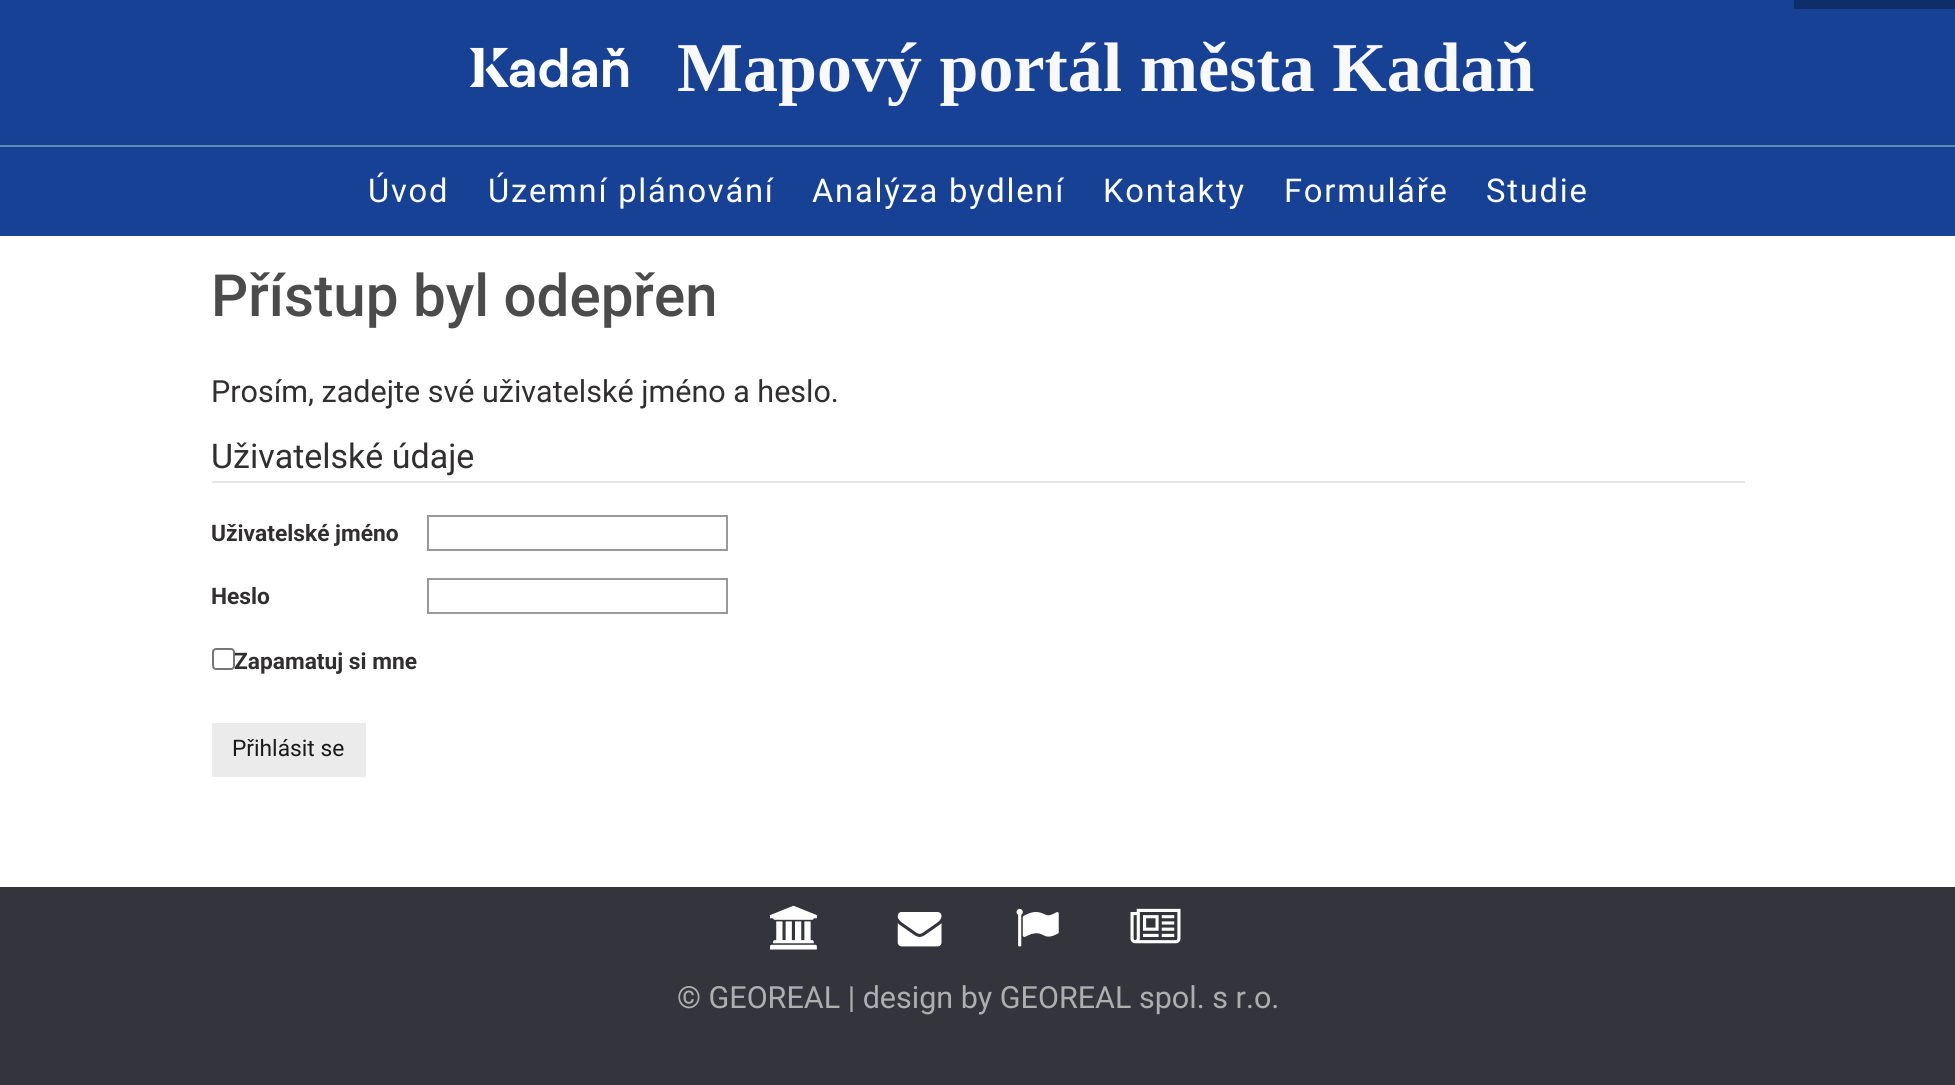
#include <cairo.h>
#include <math.h>
#include <stddef.h>

static cairo_t *ctx;

static void use_color(int r, int g, int b) {
    cairo_set_source_rgb(ctx, r / 255.0, g / 255.0, b / 255.0);
}

static void spaced_text(double x, double y, const char *s, double letter, double word) {
    cairo_move_to(ctx, x, y);
    while (*s) {
        char ch[5] = {0};
        int n = 0;
        do ch[n++] = *s++; while ((*s & 0xC0) == 0x80);
        cairo_show_text(ctx, ch);
        cairo_rel_move_to(ctx, letter + word * (*ch == ' '), 0);
    }
}

static void round_rect(double x, double y, double w, double h, double r) {
    cairo_new_sub_path(ctx);
    cairo_arc(ctx, x + w - r, y + h - r, r, 0, M_PI / 2);
    cairo_arc(ctx, x + r, y + h - r, r, M_PI / 2, M_PI);
    cairo_arc(ctx, x + r, y + r, r, M_PI, 1.5 * M_PI);
    cairo_arc(ctx, x + w - r, y + r, r, 1.5 * M_PI, 2 * M_PI);
    cairo_close_path(ctx);
}

static void picture(const char *path, double x, double y, double w, double h) {
    cairo_surface_t *image = cairo_image_surface_create_from_png(path);
    cairo_save(ctx);
    cairo_set_source_surface(ctx, image, x, y);
    cairo_rectangle(ctx, x, y, w, h);
    cairo_fill(ctx);
    cairo_restore(ctx);
    cairo_surface_destroy(image);
}

int main(void) {
    cairo_surface_t *surface = cairo_image_surface_create(CAIRO_FORMAT_RGB24, 1955, 1085);
    ctx = cairo_create(surface);
    cairo_font_options_t *options = cairo_font_options_create();
    cairo_font_options_set_hint_metrics(options, CAIRO_HINT_METRICS_OFF);
    cairo_font_options_set_hint_style(options, CAIRO_HINT_STYLE_NONE);
    cairo_set_font_options(ctx, options);
    cairo_set_miter_limit(ctx, 4);
    use_color(255, 255, 255);
    cairo_paint(ctx);
    use_color(22, 65, 148);
    cairo_rectangle(ctx, 0, 0, 1955, 145);
    cairo_fill(ctx);
    use_color(15, 46, 104);
    cairo_rectangle(ctx, 1794, 0, 161, 9);
    cairo_fill(ctx);
    use_color(92, 140, 178);
    cairo_rectangle(ctx, 0, 145, 1955, 2);
    cairo_fill(ctx);
    picture("img1.png", 469, 47, 160, 41);
    cairo_select_font_face(ctx, "Liberation Serif", CAIRO_FONT_SLANT_NORMAL, CAIRO_FONT_WEIGHT_BOLD);
    cairo_set_font_size(ctx, 70);
    use_color(249, 249, 249);
    cairo_move_to(ctx, 677, 91);
    cairo_show_text(ctx, "Mapový portál města Kadaň");
    use_color(22, 65, 148);
    cairo_rectangle(ctx, 0, 147, 1955, 89);
    cairo_fill(ctx);
    cairo_select_font_face(ctx, "Roboto", CAIRO_FONT_SLANT_NORMAL, CAIRO_FONT_WEIGHT_NORMAL);
    cairo_set_font_size(ctx, 32.75);
    use_color(255, 255, 255);
    spaced_text(368, 202, "Úvod", 1.75, 0);
    spaced_text(488, 202, "Územní plánování", 1.75, 0);
    spaced_text(812, 202, "Analýza bydlení", 1.75, 0);
    spaced_text(1103, 202, "Kontakty", 1.75, 0);
    spaced_text(1284, 202, "Formuláře", 1.75, 0);
    spaced_text(1486, 202, "Studie", 1.75, 0);
    cairo_select_font_face(ctx, "Roboto Medium", CAIRO_FONT_SLANT_NORMAL, CAIRO_FONT_WEIGHT_NORMAL);
    cairo_set_font_size(ctx, 58.25);
    use_color(75, 75, 75);
    cairo_move_to(ctx, 211, 316);
    cairo_show_text(ctx, "Přístup byl odepřen");
    cairo_select_font_face(ctx, "Roboto", CAIRO_FONT_SLANT_NORMAL, CAIRO_FONT_WEIGHT_NORMAL);
    cairo_set_font_size(ctx, 30.5);
    use_color(48, 46, 47);
    cairo_move_to(ctx, 211, 402);
    cairo_show_text(ctx, "Prosím, zadejte své uživatelské jméno a heslo.");
    use_color(229, 229, 229);
    cairo_rectangle(ctx, 212, 481, 1533, 2);
    cairo_fill(ctx);
    cairo_set_font_size(ctx, 34);
    use_color(48, 46, 47);
    cairo_move_to(ctx, 211, 468);
    cairo_show_text(ctx, "Uživatelské údaje");
    cairo_select_font_face(ctx, "Roboto", CAIRO_FONT_SLANT_NORMAL, CAIRO_FONT_WEIGHT_BOLD);
    cairo_set_font_size(ctx, 22.75);
    cairo_move_to(ctx, 211, 541);
    cairo_show_text(ctx, "Uživatelské jméno");
    cairo_rectangle(ctx, 428, 516, 299, 34);
    use_color(153, 153, 153);
    cairo_stroke(ctx);
    use_color(48, 46, 47);
    cairo_move_to(ctx, 211, 604);
    cairo_show_text(ctx, "Heslo");
    cairo_rectangle(ctx, 428, 579, 299, 34);
    use_color(153, 153, 153);
    cairo_stroke(ctx);
    round_rect(213, 649, 21, 20, 3);
    use_color(118, 118, 118);
    cairo_stroke(ctx);
    use_color(48, 46, 47);
    cairo_move_to(ctx, 234, 669);
    cairo_show_text(ctx, "Zapamatuj si mne");
    use_color(235, 235, 235);
    cairo_rectangle(ctx, 212, 723, 154, 54);
    cairo_fill(ctx);
    cairo_select_font_face(ctx, "Roboto", CAIRO_FONT_SLANT_NORMAL, CAIRO_FONT_WEIGHT_NORMAL);
    use_color(26, 26, 26);
    cairo_move_to(ctx, 232, 756);
    cairo_show_text(ctx, "Přihlásit se");
    use_color(52, 52, 60);
    cairo_rectangle(ctx, 0, 887, 1955, 198);
    cairo_fill(ctx);
    picture("img2.png", 770, 905, 47, 45);
    picture("img3.png", 897, 912, 45, 35);
    picture("img4.png", 1016, 908, 43, 39);
    picture("img5.png", 1130, 908, 51, 36);
    cairo_set_font_size(ctx, 30.5);
    use_color(174, 174, 177);
    cairo_move_to(ctx, 677, 1008);
    cairo_show_text(ctx, "© GEOREAL | design by GEOREAL spol. s r.o.");
    cairo_surface_write_to_png(surface, "result.png");
    cairo_font_options_destroy(options);
    cairo_destroy(ctx);
    cairo_surface_destroy(surface);
    return 0;
}
